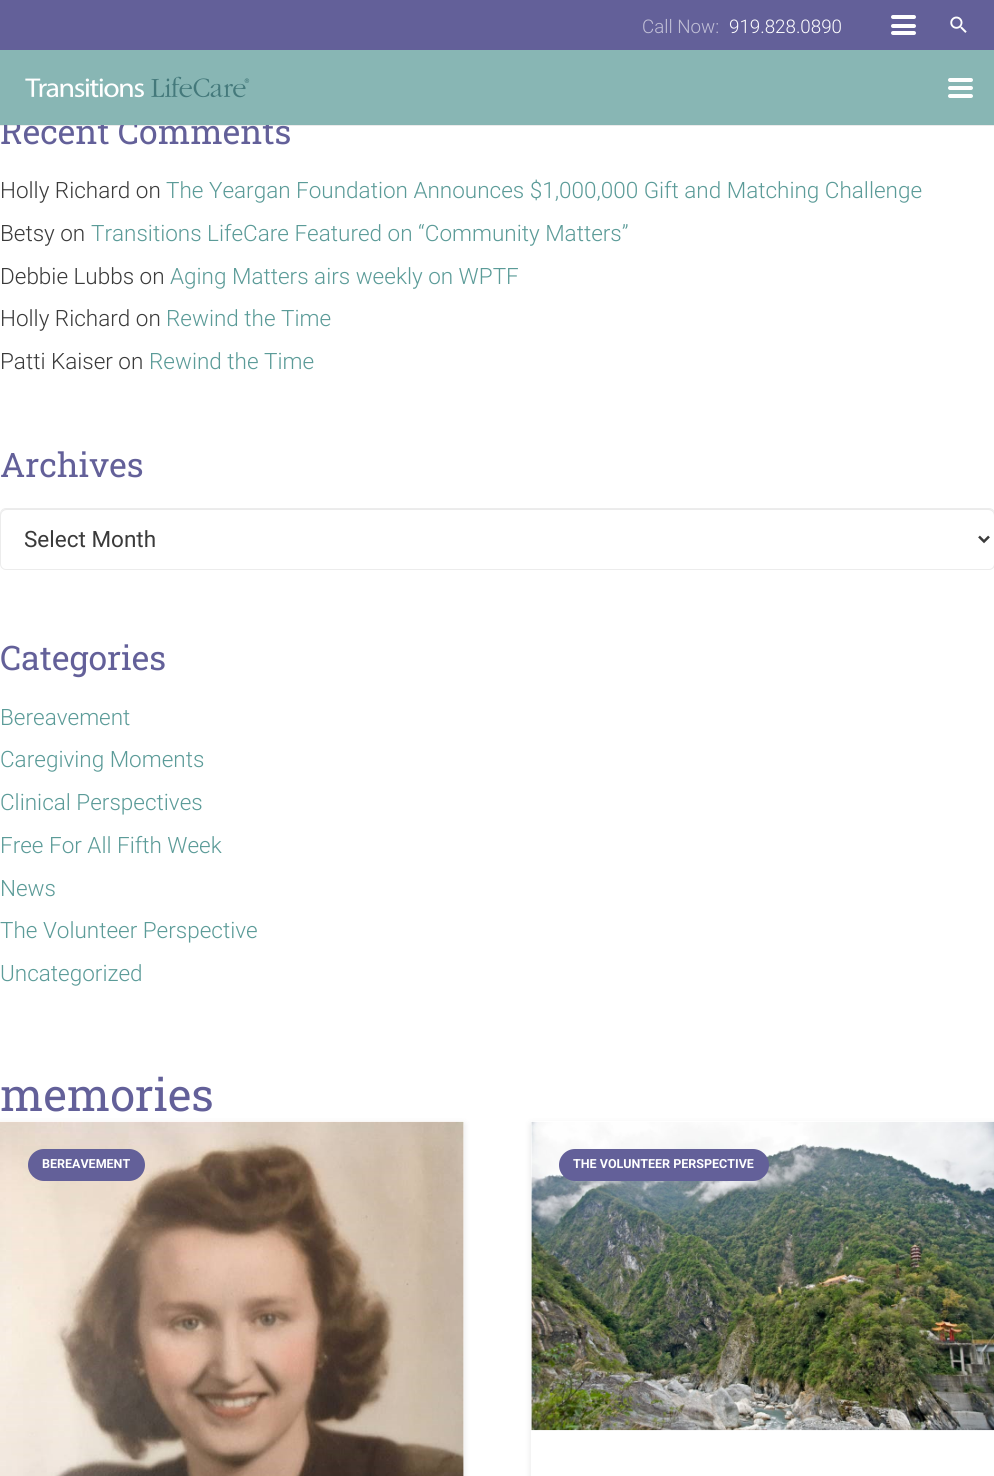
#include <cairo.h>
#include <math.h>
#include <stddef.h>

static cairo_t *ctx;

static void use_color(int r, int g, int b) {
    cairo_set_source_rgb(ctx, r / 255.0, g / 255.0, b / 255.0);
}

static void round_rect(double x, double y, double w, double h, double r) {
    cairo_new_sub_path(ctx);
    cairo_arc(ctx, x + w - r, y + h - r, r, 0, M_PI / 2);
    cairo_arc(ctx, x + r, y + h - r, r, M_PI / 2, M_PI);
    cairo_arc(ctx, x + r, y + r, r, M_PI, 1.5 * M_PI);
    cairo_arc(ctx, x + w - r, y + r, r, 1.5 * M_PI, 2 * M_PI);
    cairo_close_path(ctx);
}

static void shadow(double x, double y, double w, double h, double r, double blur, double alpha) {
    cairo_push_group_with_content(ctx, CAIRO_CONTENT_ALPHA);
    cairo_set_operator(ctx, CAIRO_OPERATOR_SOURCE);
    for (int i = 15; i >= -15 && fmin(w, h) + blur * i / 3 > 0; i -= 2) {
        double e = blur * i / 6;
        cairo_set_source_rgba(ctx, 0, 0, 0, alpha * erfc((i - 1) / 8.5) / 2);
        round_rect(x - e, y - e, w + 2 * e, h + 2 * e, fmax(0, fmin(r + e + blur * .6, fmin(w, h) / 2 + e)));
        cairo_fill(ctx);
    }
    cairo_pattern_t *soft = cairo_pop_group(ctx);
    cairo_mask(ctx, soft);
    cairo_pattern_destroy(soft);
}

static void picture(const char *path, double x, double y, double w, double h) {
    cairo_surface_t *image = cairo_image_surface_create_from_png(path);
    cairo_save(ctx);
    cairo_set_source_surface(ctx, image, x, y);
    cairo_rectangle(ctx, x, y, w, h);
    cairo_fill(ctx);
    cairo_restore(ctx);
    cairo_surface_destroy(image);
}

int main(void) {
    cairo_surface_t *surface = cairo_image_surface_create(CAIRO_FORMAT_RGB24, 994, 1476);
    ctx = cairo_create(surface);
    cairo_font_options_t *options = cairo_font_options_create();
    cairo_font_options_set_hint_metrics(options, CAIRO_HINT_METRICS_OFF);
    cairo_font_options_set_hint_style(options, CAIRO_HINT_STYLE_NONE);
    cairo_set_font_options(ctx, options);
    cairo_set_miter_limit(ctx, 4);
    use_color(255, 255, 255);
    cairo_paint(ctx);
    use_color(99, 96, 153);
    cairo_rectangle(ctx, 0, 0, 994, 50);
    cairo_fill(ctx);
    cairo_select_font_face(ctx, "Roboto Light", CAIRO_FONT_SLANT_NORMAL, CAIRO_FONT_WEIGHT_NORMAL);
    cairo_set_font_size(ctx, 18.75);
    use_color(193, 191, 214);
    cairo_move_to(ctx, 642, 33);
    cairo_show_text(ctx, "Call Now:");
    use_color(255, 255, 255);
    cairo_move_to(ctx, 729, 33);
    cairo_show_text(ctx, "919.828.0890");
    round_rect(891, 24, 25, 4, 2);
    cairo_fill(ctx);
    round_rect(891, 15, 25, 4, 2);
    cairo_fill(ctx);
    round_rect(891, 31, 25, 4, 2);
    cairo_fill(ctx);
    picture("img1.png", 950, 16, 17, 17);
    cairo_set_source_rgba(ctx, 0, 0, 0, 0.08);
    cairo_rectangle(ctx, 0, 125, 994, 1);
    cairo_fill(ctx);
    cairo_select_font_face(ctx, "Roboto Slab", CAIRO_FONT_SLANT_NORMAL, CAIRO_FONT_WEIGHT_NORMAL);
    cairo_set_font_size(ctx, 33.75);
    use_color(99, 96, 153);
    cairo_move_to(ctx, 0, 144);
    cairo_show_text(ctx, "Recent Comments");
    use_color(136, 182, 180);
    cairo_rectangle(ctx, 0, 50, 994, 75);
    cairo_fill(ctx);
    picture("img2.png", 25, 76, 225, 22);
    use_color(255, 255, 255);
    round_rect(948, 86, 25, 4, 2);
    cairo_fill(ctx);
    round_rect(948, 78, 25, 4, 2);
    cairo_fill(ctx);
    round_rect(948, 94, 25, 4, 2);
    cairo_fill(ctx);
    cairo_select_font_face(ctx, "Roboto Light", CAIRO_FONT_SLANT_NORMAL, CAIRO_FONT_WEIGHT_NORMAL);
    cairo_set_font_size(ctx, 22.5);
    use_color(58, 58, 58);
    cairo_move_to(ctx, 0, 198);
    cairo_show_text(ctx, "Holly Richard on");
    use_color(91, 155, 152);
    cairo_move_to(ctx, 166, 198);
    cairo_show_text(ctx, "The Yeargan Foundation Announces $1,000,000 Gift and Matching Challenge");
    use_color(58, 58, 58);
    cairo_move_to(ctx, 0, 241);
    cairo_show_text(ctx, "Betsy on");
    use_color(91, 155, 152);
    cairo_move_to(ctx, 91, 241);
    cairo_show_text(ctx, "Transitions LifeCare Featured on “Community Matters”");
    use_color(58, 58, 58);
    cairo_move_to(ctx, 0, 284);
    cairo_show_text(ctx, "Debbie Lubbs on");
    use_color(91, 155, 152);
    cairo_move_to(ctx, 170, 284);
    cairo_show_text(ctx, "Aging Matters airs weekly on WPTF");
    use_color(58, 58, 58);
    cairo_move_to(ctx, 0, 326);
    cairo_show_text(ctx, "Holly Richard on");
    use_color(91, 155, 152);
    cairo_move_to(ctx, 166, 326);
    cairo_show_text(ctx, "Rewind the Time");
    use_color(58, 58, 58);
    cairo_move_to(ctx, 0, 369);
    cairo_show_text(ctx, "Patti Kaiser on");
    use_color(91, 155, 152);
    cairo_move_to(ctx, 149, 369);
    cairo_show_text(ctx, "Rewind the Time");
    cairo_select_font_face(ctx, "Roboto Slab", CAIRO_FONT_SLANT_NORMAL, CAIRO_FONT_WEIGHT_NORMAL);
    cairo_set_font_size(ctx, 33.75);
    use_color(99, 96, 153);
    cairo_move_to(ctx, 0, 477);
    cairo_show_text(ctx, "Archives");
    use_color(235, 235, 235);
    cairo_new_path(ctx);
    cairo_move_to(ctx, 7, 510);
    cairo_line_to(ctx, 988, 510);
    cairo_curve_to(ctx, 991, 510, 994, 512, 994, 516);
    cairo_line_to(ctx, 994, 514);
    cairo_curve_to(ctx, 994, 511, 992, 509, 989, 509);
    cairo_line_to(ctx, 6, 509);
    cairo_curve_to(ctx, 3, 509, 1, 511, 1, 514);
    cairo_line_to(ctx, 1, 516);
    cairo_curve_to(ctx, 1, 512, 4, 510, 7, 510);
    cairo_close_path(ctx);
    cairo_fill(ctx);
    round_rect(0.5, 508.5, 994, 61, 5.5);
    use_color(236, 236, 236);
    cairo_set_line_width(ctx, 1);
    cairo_stroke(ctx);
    cairo_new_path(ctx);
    cairo_move_to(ctx, 979, 536.5);
    cairo_line_to(ctx, 984, 541.5);
    cairo_line_to(ctx, 989, 536.5);
    use_color(58, 58, 58);
    cairo_set_line_width(ctx, 2.5);
    cairo_stroke(ctx);
    cairo_select_font_face(ctx, "Roboto", CAIRO_FONT_SLANT_NORMAL, CAIRO_FONT_WEIGHT_NORMAL);
    cairo_set_font_size(ctx, 22.5);
    cairo_move_to(ctx, 24, 547);
    cairo_show_text(ctx, "Select Month");
    cairo_select_font_face(ctx, "Roboto Slab", CAIRO_FONT_SLANT_NORMAL, CAIRO_FONT_WEIGHT_NORMAL);
    cairo_set_font_size(ctx, 33.75);
    use_color(99, 96, 153);
    cairo_move_to(ctx, 0, 670);
    cairo_show_text(ctx, "Categories");
    cairo_select_font_face(ctx, "Roboto Light", CAIRO_FONT_SLANT_NORMAL, CAIRO_FONT_WEIGHT_NORMAL);
    cairo_set_font_size(ctx, 22.5);
    use_color(91, 155, 152);
    cairo_move_to(ctx, 0, 725);
    cairo_show_text(ctx, "Bereavement");
    cairo_move_to(ctx, 0, 767);
    cairo_show_text(ctx, "Caregiving Moments");
    cairo_move_to(ctx, 0, 810);
    cairo_show_text(ctx, "Clinical Perspectives");
    cairo_move_to(ctx, 0, 853);
    cairo_show_text(ctx, "Free For All Fifth Week");
    cairo_move_to(ctx, 0, 896);
    cairo_show_text(ctx, "News");
    cairo_move_to(ctx, 0, 938);
    cairo_show_text(ctx, "The Volunteer Perspective");
    cairo_move_to(ctx, 0, 981);
    cairo_show_text(ctx, "Uncategorized");
    cairo_select_font_face(ctx, "Roboto Slab", CAIRO_FONT_SLANT_NORMAL, CAIRO_FONT_WEIGHT_NORMAL);
    cairo_set_font_size(ctx, 45);
    use_color(99, 96, 153);
    cairo_move_to(ctx, 0, 1111);
    cairo_show_text(ctx, "memories");
    use_color(0, 0, 0);
    shadow(0, 1124, 464, 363, 0, 3.5, 0.1);
    use_color(255, 255, 255);
    cairo_rectangle(ctx, 0, 1121, 464, 355);
    cairo_fill(ctx);
    picture("img3.png", 0, 1121, 464, 355);
    use_color(99, 96, 153);
    round_rect(28, 1149, 117, 32, 16);
    cairo_fill(ctx);
    cairo_select_font_face(ctx, "Roboto", CAIRO_FONT_SLANT_NORMAL, CAIRO_FONT_WEIGHT_BOLD);
    cairo_set_font_size(ctx, 12.5);
    use_color(255, 255, 255);
    cairo_move_to(ctx, 42, 1168);
    cairo_show_text(ctx, "BEREAVEMENT");
    use_color(0, 0, 0);
    shadow(531, 1124, 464, 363, 0, 3.5, 0.1);
    use_color(255, 255, 255);
    cairo_rectangle(ctx, 531, 1121, 463, 355);
    cairo_fill(ctx);
    picture("img4.png", 531, 1121, 463, 310);
    use_color(99, 96, 153);
    round_rect(559, 1149, 210, 32, 16);
    cairo_fill(ctx);
    use_color(255, 255, 255);
    cairo_move_to(ctx, 573, 1168);
    cairo_show_text(ctx, "THE VOLUNTEER PERSPECTIVE");
    cairo_surface_write_to_png(surface, "result.png");
    cairo_font_options_destroy(options);
    cairo_destroy(ctx);
    cairo_surface_destroy(surface);
    return 0;
}
